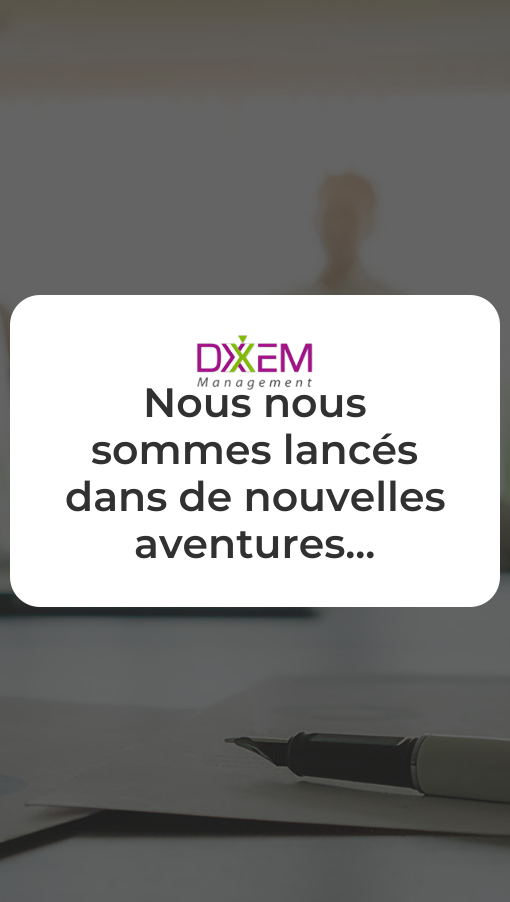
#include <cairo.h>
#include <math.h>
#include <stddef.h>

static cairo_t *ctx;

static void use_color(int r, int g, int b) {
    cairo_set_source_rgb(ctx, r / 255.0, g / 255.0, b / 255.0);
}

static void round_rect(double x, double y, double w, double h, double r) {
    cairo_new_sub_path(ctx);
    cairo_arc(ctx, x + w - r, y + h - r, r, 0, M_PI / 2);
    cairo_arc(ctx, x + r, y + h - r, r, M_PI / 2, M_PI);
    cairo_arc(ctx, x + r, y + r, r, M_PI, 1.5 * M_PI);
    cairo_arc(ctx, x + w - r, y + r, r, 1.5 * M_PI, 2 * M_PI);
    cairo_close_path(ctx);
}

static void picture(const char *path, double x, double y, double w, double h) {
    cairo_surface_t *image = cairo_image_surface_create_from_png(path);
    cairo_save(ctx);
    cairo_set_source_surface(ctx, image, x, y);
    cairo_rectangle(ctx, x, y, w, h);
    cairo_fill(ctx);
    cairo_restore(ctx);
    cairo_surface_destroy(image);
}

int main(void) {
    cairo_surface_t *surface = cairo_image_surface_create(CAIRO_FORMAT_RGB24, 510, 902);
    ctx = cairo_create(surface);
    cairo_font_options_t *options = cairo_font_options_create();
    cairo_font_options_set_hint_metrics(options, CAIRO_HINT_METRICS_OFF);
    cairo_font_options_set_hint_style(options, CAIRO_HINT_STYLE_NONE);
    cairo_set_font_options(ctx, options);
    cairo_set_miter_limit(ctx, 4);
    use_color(255, 255, 255);
    cairo_paint(ctx);
    picture("img1.png", 0, 0, 510, 902);
    use_color(255, 255, 255);
    round_rect(10, 295, 490, 312, 30);
    cairo_fill(ctx);
    picture("img2.png", 196, 335, 117, 56);
    cairo_select_font_face(ctx, "Montserrat SemiBold", CAIRO_FONT_SLANT_NORMAL, CAIRO_FONT_WEIGHT_NORMAL);
    cairo_set_font_size(ctx, 41);
    use_color(49, 49, 49);
    cairo_move_to(ctx, 143, 417);
    cairo_show_text(ctx, "Nous nous");
    cairo_move_to(ctx, 91, 464);
    cairo_show_text(ctx, "sommes lancés");
    cairo_move_to(ctx, 65, 511);
    cairo_show_text(ctx, "dans de nouvelles");
    cairo_move_to(ctx, 134, 558);
    cairo_show_text(ctx, "aventures...");
    cairo_surface_write_to_png(surface, "result.png");
    cairo_font_options_destroy(options);
    cairo_destroy(ctx);
    cairo_surface_destroy(surface);
    return 0;
}
